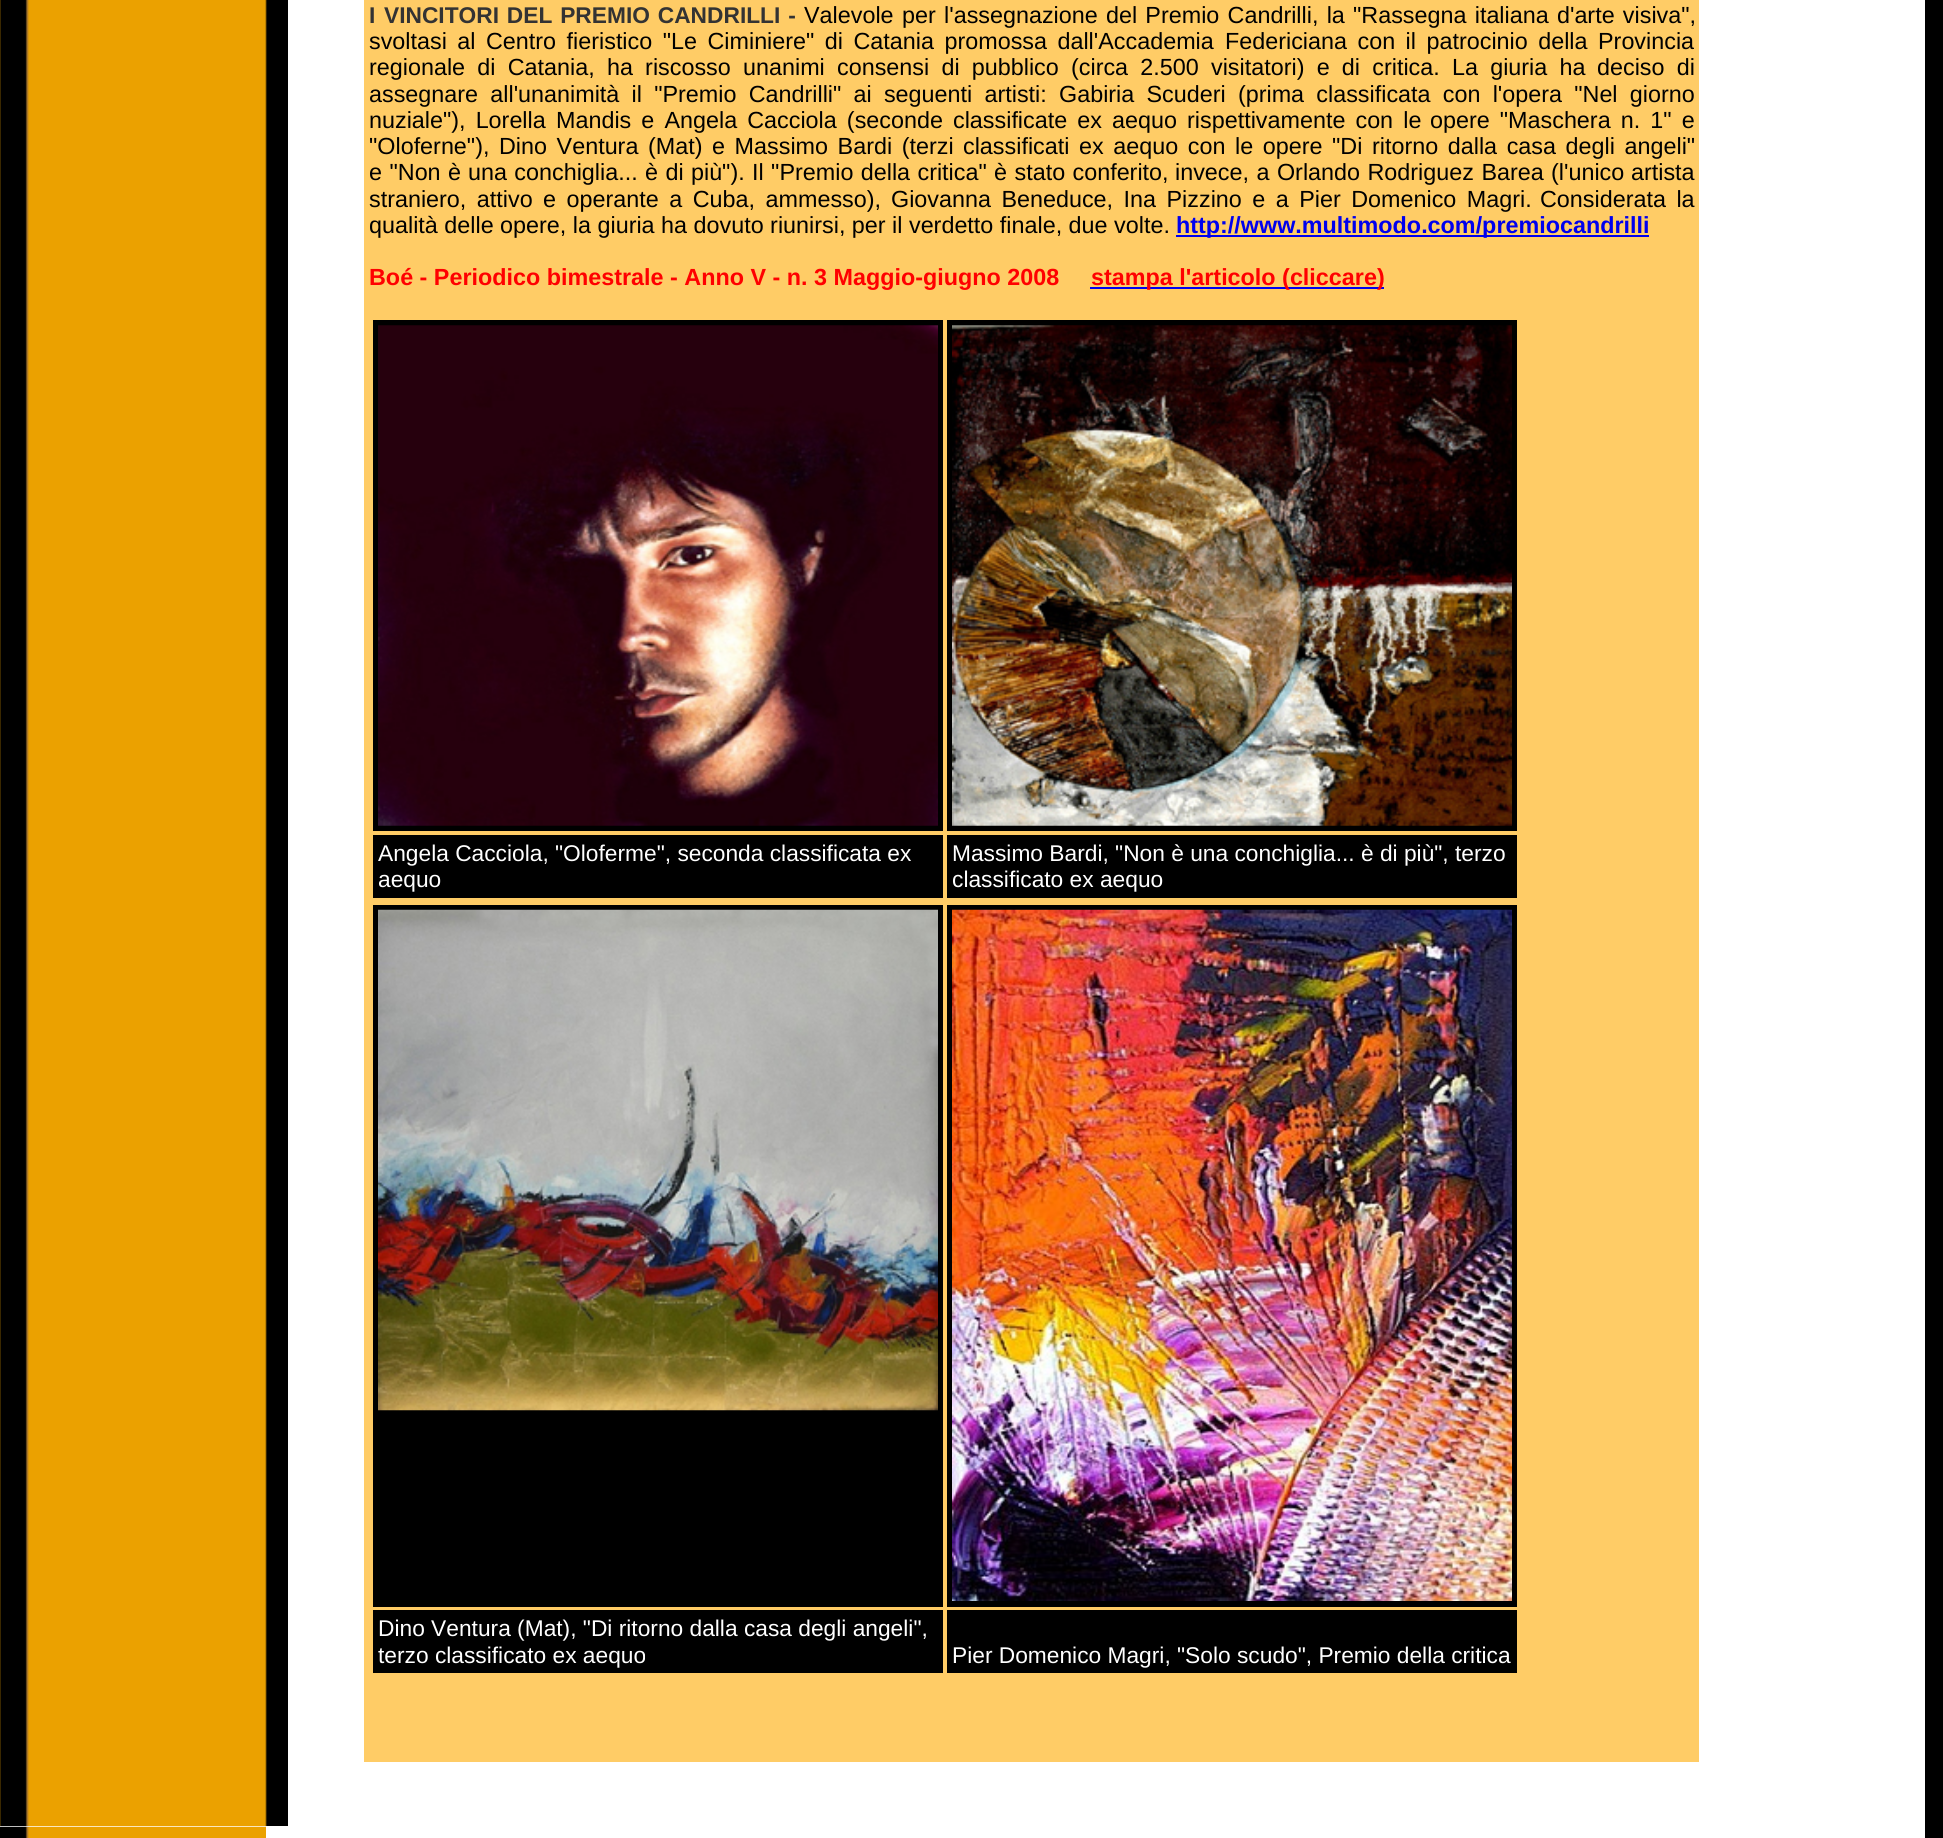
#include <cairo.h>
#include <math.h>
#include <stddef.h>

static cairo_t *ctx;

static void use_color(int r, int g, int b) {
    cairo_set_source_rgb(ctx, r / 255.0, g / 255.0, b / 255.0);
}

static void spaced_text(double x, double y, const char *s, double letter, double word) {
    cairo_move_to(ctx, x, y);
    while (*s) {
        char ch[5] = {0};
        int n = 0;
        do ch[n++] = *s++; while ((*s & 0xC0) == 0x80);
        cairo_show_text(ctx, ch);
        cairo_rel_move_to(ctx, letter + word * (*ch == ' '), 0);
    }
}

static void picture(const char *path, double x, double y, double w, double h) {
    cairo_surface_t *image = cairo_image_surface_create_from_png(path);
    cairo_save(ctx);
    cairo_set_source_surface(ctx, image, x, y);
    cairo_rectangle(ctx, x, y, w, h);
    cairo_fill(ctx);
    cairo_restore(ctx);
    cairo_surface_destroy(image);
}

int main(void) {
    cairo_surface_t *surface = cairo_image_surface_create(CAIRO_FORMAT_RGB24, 1943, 1838);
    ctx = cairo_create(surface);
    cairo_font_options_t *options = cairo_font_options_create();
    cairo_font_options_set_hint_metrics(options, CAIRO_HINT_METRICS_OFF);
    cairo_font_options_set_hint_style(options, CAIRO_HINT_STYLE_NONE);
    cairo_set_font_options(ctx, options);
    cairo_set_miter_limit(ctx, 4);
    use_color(0, 0, 0);
    cairo_paint(ctx);
    picture("img1.png", 0, 0, 267, 1826);
    use_color(255, 255, 255);
    cairo_rectangle(ctx, 288, 0, 1637, 1827);
    cairo_fill(ctx);
    use_color(255, 204, 102);
    cairo_rectangle(ctx, 364, 0, 1335, 1762);
    cairo_fill(ctx);
    cairo_select_font_face(ctx, "Liberation Sans", CAIRO_FONT_SLANT_NORMAL, CAIRO_FONT_WEIGHT_BOLD);
    cairo_set_font_size(ctx, 22.75);
    use_color(51, 51, 51);
    cairo_move_to(ctx, 369, 23);
    cairo_show_text(ctx, "I");
    spaced_text(384, 23, "VINCITORI DEL PREMIO CANDRILLI -", 0, 1.5);
    cairo_select_font_face(ctx, "Liberation Sans", CAIRO_FONT_SLANT_NORMAL, CAIRO_FONT_WEIGHT_NORMAL);
    cairo_set_font_size(ctx, 23.35);
    use_color(0, 0, 0);
    spaced_text(804, 23, "Valevole per", 0, 2);
    spaced_text(944, 23, "l'assegnazione del Premio Candrilli, la \"Rassegna italiana d'arte visiva\",", 0, 1.75);
    spaced_text(369, 49, "svoltasi al Centro fieristico \"Le Ciminiere\" di Catania promossa dall'Accademia", 0, 4);
    spaced_text(1225, 49, "Federiciana con il patrocinio della Provincia", 0, 4);
    spaced_text(369, 75, "regionale di Catania, ha riscosso", 0, 5.75);
    spaced_text(743, 75, "unanimi consensi di pubblico (circa 2.500 visitatori) e di critica. La giuria ha", 0, 5.75);
    spaced_text(1597, 75, "deciso di", 0, 5.75);
    spaced_text(369, 102, "assegnare all'unanimità il \"Premio Candrilli\" ai seguenti artisti:", 0, 5.75);
    spaced_text(1059, 102, "Gabiria Scuderi (prima classificata con l'opera \"Nel giorno", 0, 5.75);
    spaced_text(369, 128, "nuziale\"), Lorella", 0, 3.6);
    spaced_text(556, 128, "Mandis e Angela Cacciola (seconde classificate ex aequo rispettivamente con le", 0, 3.6);
    spaced_text(1430, 128, "opere \"Maschera n. 1\" e", 0, 3.6);
    spaced_text(369, 154, "\"Oloferne\"), Dino Ventura (Mat) e Massimo Bardi (terzi", 0, 3.1);
    spaced_text(963, 154, "classificati ex aequo con le opere \"Di ritorno dalla casa degli angeli\"", 0, 3.1);
    spaced_text(369, 180, "e \"Non è", 0, 1);
    spaced_text(468, 180, "una conchiglia... è di più\"). Il \"Premio della critica\" è stato conferito,", 0, 0.9);
    spaced_text(1175, 180, "invece, a Orlando Rodriguez Barea", 0, 1);
    cairo_move_to(ctx, 1551, 180);
    cairo_show_text(ctx, "(l'unico");
    cairo_move_to(ctx, 1631, 180);
    cairo_show_text(ctx, "artista");
    spaced_text(369, 207, "straniero, attivo e operante a Cuba, ammesso),", 0, 4);
    spaced_text(891, 207, "Giovanna Beneduce, Ina Pizzino e a Pier Domenico Magri.", 0, 4);
    spaced_text(1540, 207, "Considerata la", 0, 4);
    cairo_move_to(ctx, 369, 233);
    cairo_show_text(ctx, "qualità delle opere, la giuria ha dovuto riunirsi, per il verdetto finale, due volte.");
    use_color(0, 0, 238);
    cairo_rectangle(ctx, 1176, 235, 473, 2);
    cairo_fill(ctx);
    cairo_select_font_face(ctx, "Liberation Sans", CAIRO_FONT_SLANT_NORMAL, CAIRO_FONT_WEIGHT_BOLD);
    cairo_move_to(ctx, 1176, 233);
    cairo_show_text(ctx, "http://www.multimodo.com/premiocandrilli");
    use_color(255, 0, 0);
    cairo_move_to(ctx, 369, 285);
    cairo_show_text(ctx, "Boé - Periodico bimestrale - Anno V - n. 3 Maggio-giugno 2008");
    use_color(0, 0, 238);
    cairo_rectangle(ctx, 1090, 287, 294, 2);
    cairo_fill(ctx);
    use_color(255, 0, 0);
    cairo_move_to(ctx, 1091, 285);
    cairo_show_text(ctx, "stampa l'articolo (cliccare)");
    use_color(0, 0, 0);
    cairo_rectangle(ctx, 373, 320, 570, 511);
    cairo_fill(ctx);
    picture("img2.png", 378, 325, 560, 501);
    cairo_rectangle(ctx, 947, 320, 570, 511);
    cairo_fill(ctx);
    picture("img3.png", 952, 325, 560, 501);
    cairo_rectangle(ctx, 373, 835, 570, 63);
    cairo_fill(ctx);
    cairo_select_font_face(ctx, "Liberation Sans", CAIRO_FONT_SLANT_NORMAL, CAIRO_FONT_WEIGHT_NORMAL);
    cairo_set_font_size(ctx, 22.75);
    use_color(255, 255, 255);
    cairo_move_to(ctx, 378, 861);
    cairo_show_text(ctx, "Angela Cacciola, \"Oloferme\", seconda classificata ex");
    cairo_move_to(ctx, 378, 887);
    cairo_show_text(ctx, "aequo");
    use_color(0, 0, 0);
    cairo_rectangle(ctx, 947, 835, 570, 63);
    cairo_fill(ctx);
    use_color(255, 255, 255);
    cairo_move_to(ctx, 952, 861);
    cairo_show_text(ctx, "Massimo Bardi, \"Non è una conchiglia... è di più\", terzo");
    cairo_move_to(ctx, 952, 887);
    cairo_show_text(ctx, "classificato ex aequo");
    use_color(0, 0, 0);
    cairo_rectangle(ctx, 373, 905, 570, 702);
    cairo_fill(ctx);
    picture("img4.png", 378, 909, 560, 502);
    cairo_rectangle(ctx, 947, 905, 570, 702);
    cairo_fill(ctx);
    picture("img5.png", 952, 909, 560, 692);
    cairo_rectangle(ctx, 373, 1610, 570, 63);
    cairo_fill(ctx);
    use_color(255, 255, 255);
    cairo_move_to(ctx, 378, 1636);
    cairo_show_text(ctx, "Dino Ventura (Mat), \"Di ritorno dalla casa degli angeli\",");
    cairo_move_to(ctx, 378, 1663);
    cairo_show_text(ctx, "terzo classificato ex aequo");
    use_color(0, 0, 0);
    cairo_rectangle(ctx, 947, 1610, 570, 63);
    cairo_fill(ctx);
    use_color(255, 255, 255);
    cairo_move_to(ctx, 952, 1663);
    cairo_show_text(ctx, "Pier Domenico Magri, \"Solo scudo\", Premio della critica");
    cairo_rectangle(ctx, 0, 1826, 1509, 12);
    cairo_fill(ctx);
    picture("img6.png", 0, 1826, 266, 12);
    cairo_rectangle(ctx, 1509, 1827, 416, 11);
    cairo_fill(ctx);
    cairo_surface_write_to_png(surface, "result.png");
    cairo_font_options_destroy(options);
    cairo_destroy(ctx);
    cairo_surface_destroy(surface);
    return 0;
}
